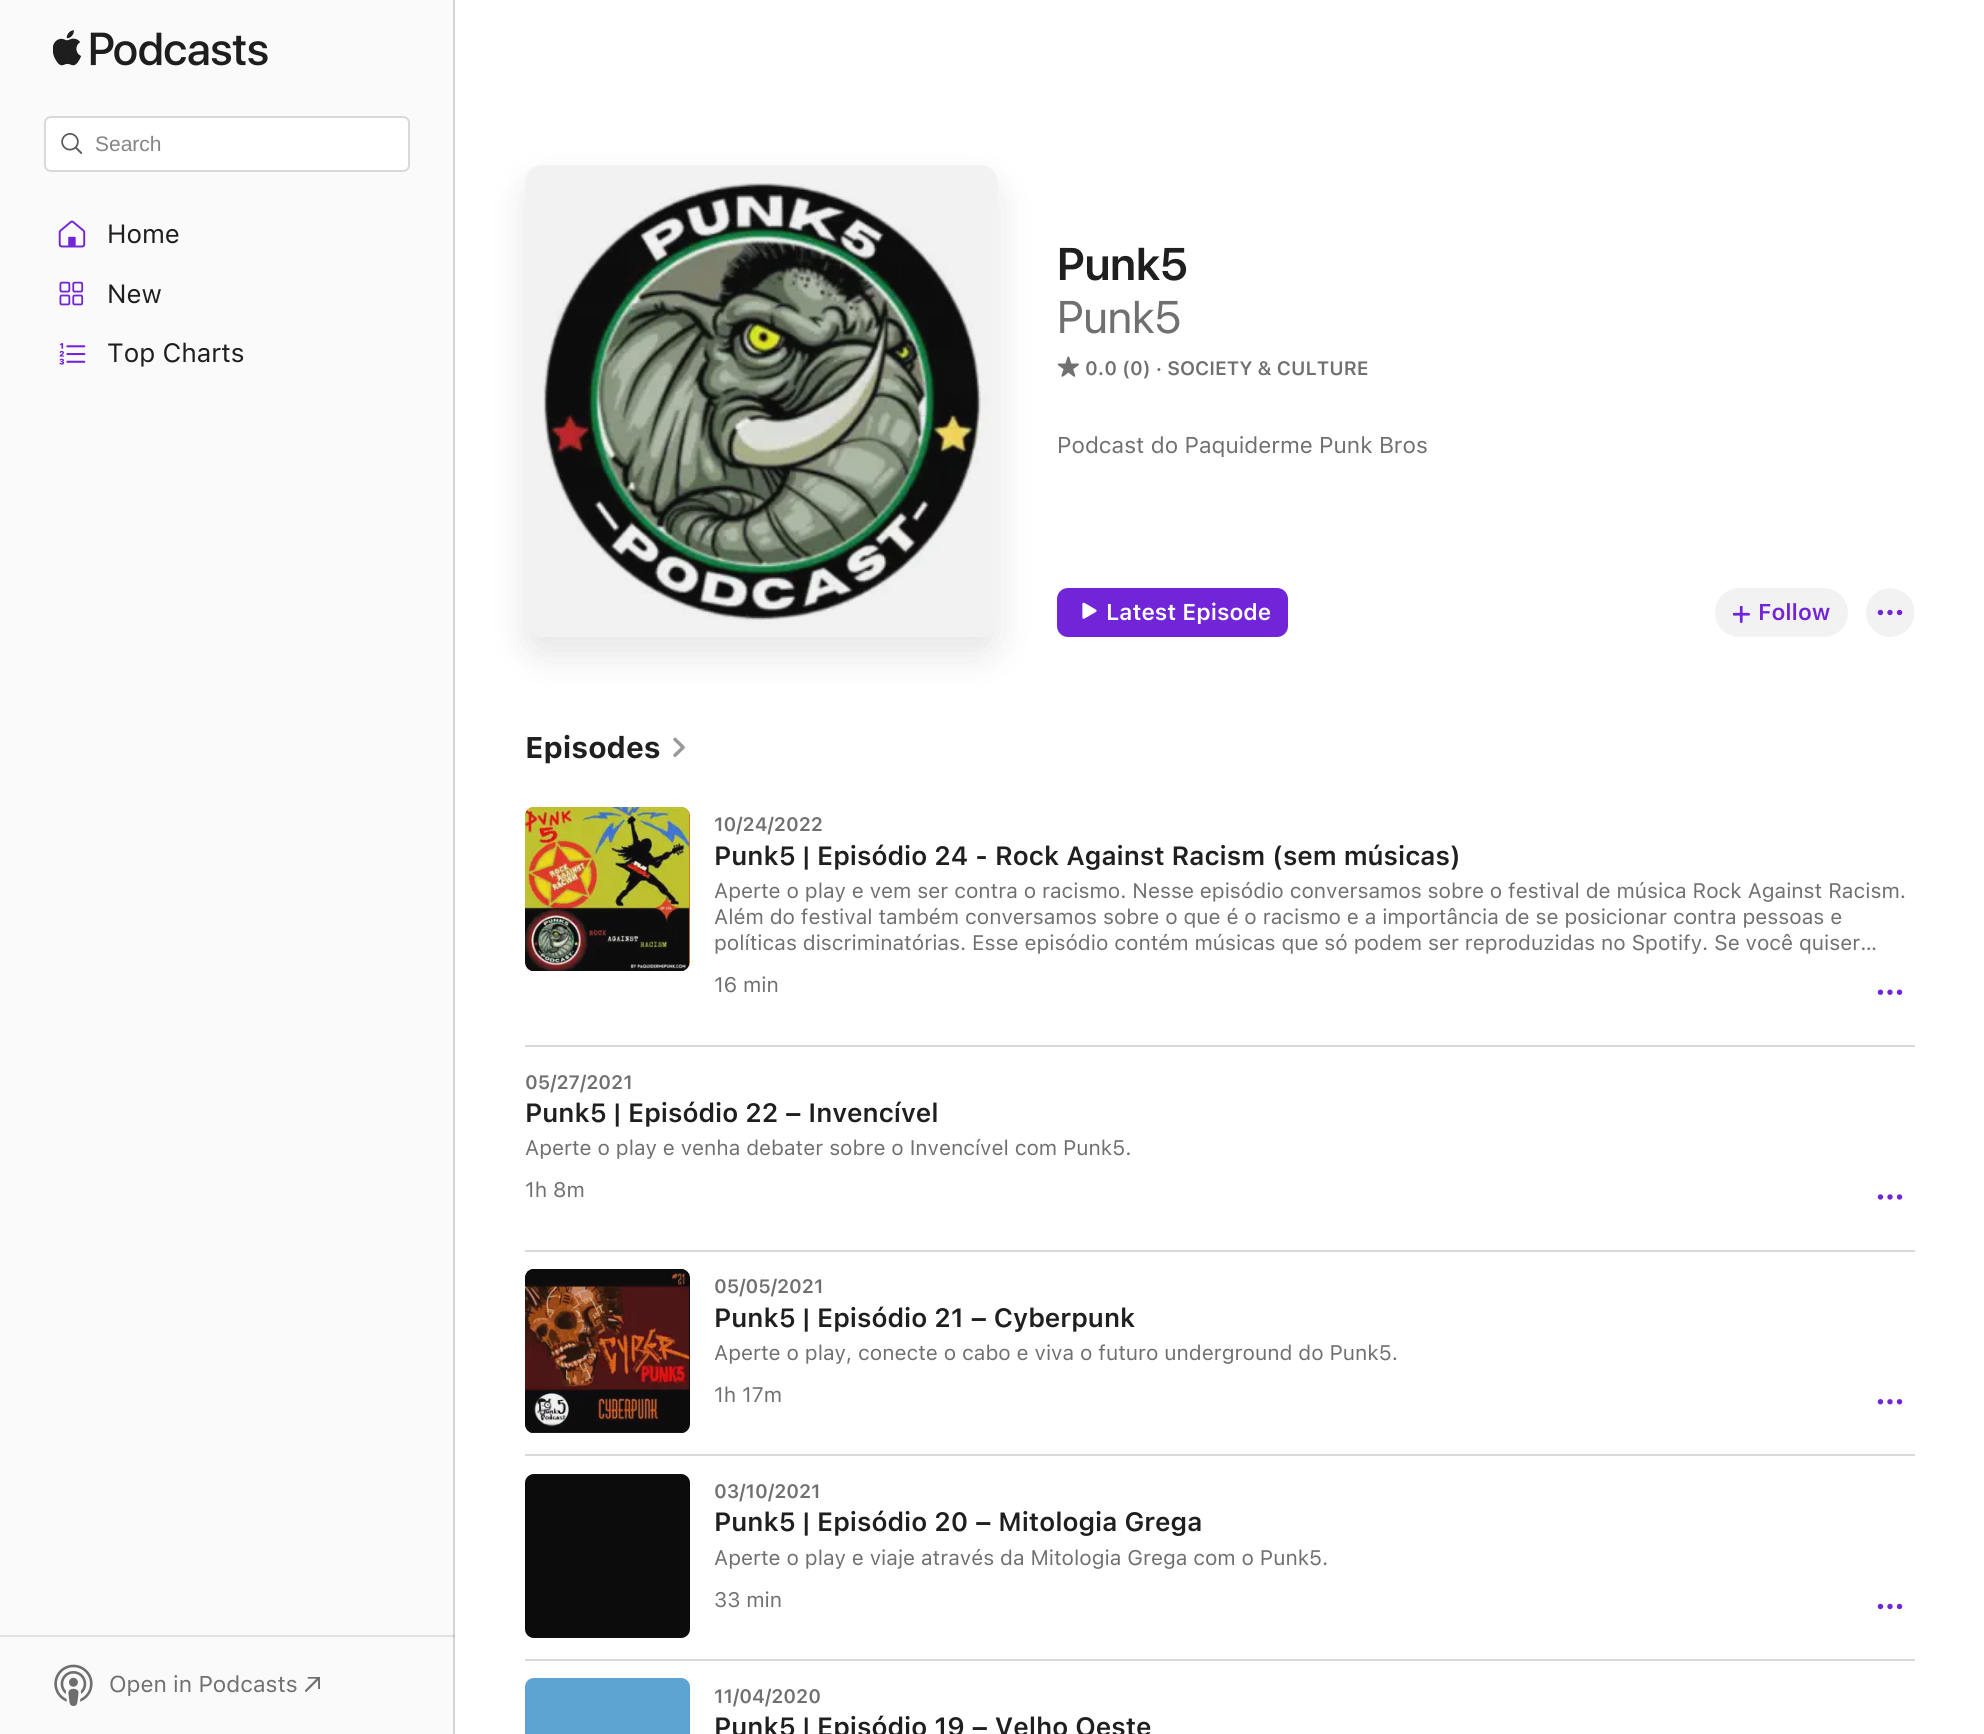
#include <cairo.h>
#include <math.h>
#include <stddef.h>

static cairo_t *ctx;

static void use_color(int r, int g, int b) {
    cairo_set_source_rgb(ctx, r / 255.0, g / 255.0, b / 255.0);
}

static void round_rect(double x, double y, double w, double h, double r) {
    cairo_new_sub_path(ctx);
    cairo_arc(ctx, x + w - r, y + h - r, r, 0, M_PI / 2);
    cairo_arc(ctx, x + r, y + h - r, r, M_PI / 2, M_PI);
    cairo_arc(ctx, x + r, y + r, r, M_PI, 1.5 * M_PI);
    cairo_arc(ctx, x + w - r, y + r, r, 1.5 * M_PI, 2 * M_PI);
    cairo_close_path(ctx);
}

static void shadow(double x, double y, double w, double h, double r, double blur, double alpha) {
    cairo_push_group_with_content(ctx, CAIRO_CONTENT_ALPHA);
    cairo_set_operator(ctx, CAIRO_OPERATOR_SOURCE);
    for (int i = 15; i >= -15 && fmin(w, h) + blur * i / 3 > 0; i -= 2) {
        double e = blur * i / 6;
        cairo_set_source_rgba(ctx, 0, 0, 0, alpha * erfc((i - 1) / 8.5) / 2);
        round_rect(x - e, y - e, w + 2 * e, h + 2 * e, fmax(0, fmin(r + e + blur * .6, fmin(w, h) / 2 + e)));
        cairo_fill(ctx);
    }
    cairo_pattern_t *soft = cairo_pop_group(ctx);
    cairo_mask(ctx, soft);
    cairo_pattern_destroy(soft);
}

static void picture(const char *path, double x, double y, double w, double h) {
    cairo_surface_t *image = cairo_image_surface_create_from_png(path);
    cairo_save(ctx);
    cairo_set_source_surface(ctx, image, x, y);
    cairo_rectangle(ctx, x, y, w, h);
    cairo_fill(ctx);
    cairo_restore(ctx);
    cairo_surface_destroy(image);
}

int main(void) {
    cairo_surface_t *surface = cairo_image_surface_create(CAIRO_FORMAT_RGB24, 1984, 1734);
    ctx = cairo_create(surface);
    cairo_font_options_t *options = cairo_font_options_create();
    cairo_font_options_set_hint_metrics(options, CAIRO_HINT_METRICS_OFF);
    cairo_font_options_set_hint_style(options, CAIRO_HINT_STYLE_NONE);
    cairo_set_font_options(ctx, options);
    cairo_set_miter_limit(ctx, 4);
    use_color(255, 255, 255);
    cairo_paint(ctx);
    use_color(250, 250, 250);
    cairo_rectangle(ctx, 0, 0, 453, 1734);
    cairo_fill(ctx);
    use_color(225, 225, 225);
    cairo_rectangle(ctx, 0, 1635, 455, 2);
    cairo_fill(ctx);
    use_color(213, 213, 213);
    cairo_rectangle(ctx, 453, 0, 2, 1734);
    cairo_fill(ctx);
    use_color(192, 192, 192);
    cairo_rectangle(ctx, 453, 1635, 2, 2);
    cairo_fill(ctx);
    picture("img1.png", 53, 30, 215, 36);
    use_color(255, 255, 255);
    round_rect(45, 117, 364, 54, 6);
    cairo_fill_preserve(ctx);
    use_color(217, 217, 217);
    cairo_stroke(ctx);
    picture("img2.png", 61, 133, 21, 21);
    cairo_select_font_face(ctx, "Liberation Sans", CAIRO_FONT_SLANT_NORMAL, CAIRO_FONT_WEIGHT_NORMAL);
    cairo_set_font_size(ctx, 21);
    use_color(133, 133, 133);
    cairo_move_to(ctx, 95, 151);
    cairo_show_text(ctx, "Search");
    picture("img3.png", 58, 220, 28, 28);
    cairo_select_font_face(ctx, "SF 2", CAIRO_FONT_SLANT_NORMAL, CAIRO_FONT_WEIGHT_NORMAL);
    cairo_set_font_size(ctx, 26.25);
    use_color(31, 31, 31);
    cairo_move_to(ctx, 107, 243);
    cairo_show_text(ctx, "Home");
    picture("img4.png", 59, 281, 25, 25);
    cairo_move_to(ctx, 107, 303);
    cairo_show_text(ctx, "New");
    picture("img5.png", 59, 343, 27, 22);
    cairo_move_to(ctx, 107, 362);
    cairo_show_text(ctx, "Top Charts");
    picture("img6.png", 54, 1664, 39, 42);
    cairo_set_font_size(ctx, 22.75);
    use_color(112, 112, 112);
    cairo_move_to(ctx, 109, 1692);
    cairo_show_text(ctx, "Open in Podcasts");
    picture("img7.png", 305, 1677, 15, 15);
    cairo_save(ctx);
    cairo_set_fill_rule(ctx, CAIRO_FILL_RULE_EVEN_ODD);
    cairo_new_path(ctx);
    cairo_move_to(ctx, 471, 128);
    cairo_line_to(ctx, 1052, 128);
    cairo_line_to(ctx, 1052, 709);
    cairo_line_to(ctx, 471, 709);
    cairo_close_path(ctx);
    cairo_move_to(ctx, 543, 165);
    cairo_line_to(ctx, 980, 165);
    cairo_curve_to(ctx, 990, 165, 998, 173, 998, 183);
    cairo_line_to(ctx, 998, 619);
    cairo_curve_to(ctx, 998, 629, 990, 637, 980, 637);
    cairo_line_to(ctx, 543, 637);
    cairo_curve_to(ctx, 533, 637, 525, 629, 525, 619);
    cairo_line_to(ctx, 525, 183);
    cairo_curve_to(ctx, 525, 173, 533, 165, 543, 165);
    cairo_close_path(ctx);
    cairo_clip(ctx);
    use_color(0, 0, 0);
    shadow(525, 182, 473, 473, 18, 17.5, 0.1);
    cairo_restore(ctx);
    picture("img8.png", 543, 183, 447, 441);
    cairo_set_source_rgba(ctx, 0.502, 0.502, 0.502, 0.1);
    cairo_new_path(ctx);
    cairo_move_to(ctx, 543, 165);
    cairo_line_to(ctx, 980, 165);
    cairo_curve_to(ctx, 990, 165, 998, 173, 998, 183);
    cairo_line_to(ctx, 998, 619);
    cairo_curve_to(ctx, 998, 629, 990, 637, 980, 637);
    cairo_line_to(ctx, 543, 637);
    cairo_curve_to(ctx, 533, 637, 525, 629, 525, 619);
    cairo_line_to(ctx, 525, 183);
    cairo_curve_to(ctx, 525, 173, 533, 165, 543, 165);
    cairo_close_path(ctx);
    cairo_fill(ctx);
    cairo_select_font_face(ctx, "SF 2 SemiBold", CAIRO_FONT_SLANT_NORMAL, CAIRO_FONT_WEIGHT_NORMAL);
    cairo_set_font_size(ctx, 45.5);
    use_color(31, 31, 31);
    cairo_move_to(ctx, 1057, 280);
    cairo_show_text(ctx, "Punk5");
    cairo_select_font_face(ctx, "SF", CAIRO_FONT_SLANT_NORMAL, CAIRO_FONT_WEIGHT_NORMAL);
    use_color(112, 112, 112);
    cairo_move_to(ctx, 1057, 333);
    cairo_show_text(ctx, "Punk5");
    picture("img9.png", 1057, 356, 22, 21);
    cairo_select_font_face(ctx, "SF SemiBold", CAIRO_FONT_SLANT_NORMAL, CAIRO_FONT_WEIGHT_NORMAL);
    cairo_set_font_size(ctx, 19.25);
    cairo_move_to(ctx, 1085, 375);
    cairo_show_text(ctx, "0.0 (0) · SOCIETY & CULTURE");
    cairo_select_font_face(ctx, "SF 2", CAIRO_FONT_SLANT_NORMAL, CAIRO_FONT_WEIGHT_NORMAL);
    cairo_set_font_size(ctx, 22.75);
    cairo_move_to(ctx, 1057, 453);
    cairo_show_text(ctx, "Podcast do Paquiderme Punk Bros");
    use_color(114, 36, 216);
    round_rect(1057, 588, 231, 49, 11);
    cairo_fill(ctx);
    picture("img10.png", 1082, 602, 15, 17);
    cairo_select_font_face(ctx, "SF SemiBold", CAIRO_FONT_SLANT_NORMAL, CAIRO_FONT_WEIGHT_NORMAL);
    use_color(255, 255, 255);
    cairo_move_to(ctx, 1106, 620);
    cairo_show_text(ctx, "Latest Episode");
    use_color(242, 242, 242);
    round_rect(1715, 588, 133, 49, 24.5);
    cairo_fill(ctx);
    picture("img11.png", 1733, 606, 17, 17);
    use_color(114, 36, 216);
    cairo_move_to(ctx, 1758, 620);
    cairo_show_text(ctx, "Follow");
    picture("img12.png", 1866, 588, 49, 49);
    cairo_select_font_face(ctx, "SF", CAIRO_FONT_SLANT_NORMAL, CAIRO_FONT_WEIGHT_BOLD);
    cairo_set_font_size(ctx, 29.75);
    use_color(31, 31, 31);
    cairo_move_to(ctx, 525, 758);
    cairo_show_text(ctx, "Episodes");
    picture("img13.png", 673, 737, 12, 20);
    use_color(217, 217, 217);
    cairo_rectangle(ctx, 525, 1045, 1390, 2);
    cairo_fill(ctx);
    use_color(217, 112, 25);
    round_rect(525, 807, 165, 164, 9);
    cairo_fill(ctx);
    picture("img14.png", 525, 807, 165, 164);
    cairo_set_source_rgba(ctx, 0.502, 0.502, 0.502, 0.1);
    cairo_new_path(ctx);
    cairo_move_to(ctx, 534, 807);
    cairo_line_to(ctx, 681, 807);
    cairo_curve_to(ctx, 686, 807, 690, 811, 690, 816);
    cairo_line_to(ctx, 690, 962);
    cairo_curve_to(ctx, 690, 967, 686, 971, 681, 971);
    cairo_line_to(ctx, 534, 971);
    cairo_curve_to(ctx, 529, 971, 525, 967, 525, 962);
    cairo_line_to(ctx, 525, 816);
    cairo_curve_to(ctx, 525, 811, 529, 807, 534, 807);
    cairo_close_path(ctx);
    cairo_fill(ctx);
    cairo_select_font_face(ctx, "SF SemiBold", CAIRO_FONT_SLANT_NORMAL, CAIRO_FONT_WEIGHT_NORMAL);
    cairo_set_font_size(ctx, 19.25);
    use_color(112, 112, 112);
    cairo_move_to(ctx, 714, 831);
    cairo_show_text(ctx, "10/24/2022");
    cairo_set_font_size(ctx, 26.25);
    use_color(31, 31, 31);
    cairo_move_to(ctx, 714, 865);
    cairo_show_text(ctx, "Punk5 | Episódio 24 - Rock Against Racism (sem músicas)");
    cairo_select_font_face(ctx, "SF 2", CAIRO_FONT_SLANT_NORMAL, CAIRO_FONT_WEIGHT_NORMAL);
    cairo_set_font_size(ctx, 21);
    use_color(112, 112, 112);
    cairo_move_to(ctx, 714, 898);
    cairo_show_text(ctx, "Aperte o play e vem ser contra o racismo. Nesse episódio conversamos sobre o festival de música Rock Against Racism.");
    cairo_move_to(ctx, 714, 924);
    cairo_show_text(ctx, "Além do festival também conversamos sobre o que é o racismo e a importância de se posicionar contra pessoas e");
    cairo_move_to(ctx, 714, 950);
    cairo_show_text(ctx, "políticas discriminatórias. Esse episódio contém músicas que só podem ser reproduzidas no Spotify. Se você quiser…");
    cairo_move_to(ctx, 714, 992);
    cairo_show_text(ctx, "16 min");
    picture("img15.png", 1877, 989, 26, 6);
    use_color(217, 217, 217);
    cairo_rectangle(ctx, 525, 1250, 1390, 2);
    cairo_fill(ctx);
    cairo_select_font_face(ctx, "SF SemiBold", CAIRO_FONT_SLANT_NORMAL, CAIRO_FONT_WEIGHT_NORMAL);
    cairo_set_font_size(ctx, 19.25);
    use_color(112, 112, 112);
    cairo_move_to(ctx, 525, 1089);
    cairo_show_text(ctx, "05/27/2021");
    cairo_set_font_size(ctx, 26.25);
    use_color(31, 31, 31);
    cairo_move_to(ctx, 525, 1122);
    cairo_show_text(ctx, "Punk5 | Episódio 22 – Invencível");
    cairo_select_font_face(ctx, "SF 2", CAIRO_FONT_SLANT_NORMAL, CAIRO_FONT_WEIGHT_NORMAL);
    cairo_set_font_size(ctx, 21);
    use_color(112, 112, 112);
    cairo_move_to(ctx, 525, 1155);
    cairo_show_text(ctx, "Aperte o play e venha debater sobre o Invencível com Punk5.");
    cairo_move_to(ctx, 525, 1197);
    cairo_show_text(ctx, "1h 8m");
    picture("img16.png", 1877, 1194, 26, 6);
    use_color(217, 217, 217);
    cairo_rectangle(ctx, 525, 1454, 1390, 2);
    cairo_fill(ctx);
    use_color(0, 0, 0);
    round_rect(525, 1269, 165, 164, 9);
    cairo_fill(ctx);
    picture("img17.png", 525, 1269, 165, 164);
    cairo_set_source_rgba(ctx, 0.502, 0.502, 0.502, 0.1);
    cairo_new_path(ctx);
    cairo_move_to(ctx, 534, 1269);
    cairo_line_to(ctx, 681, 1269);
    cairo_curve_to(ctx, 686, 1269, 690, 1273, 690, 1278);
    cairo_line_to(ctx, 690, 1424);
    cairo_curve_to(ctx, 690, 1429, 686, 1433, 681, 1433);
    cairo_line_to(ctx, 534, 1433);
    cairo_curve_to(ctx, 529, 1433, 525, 1429, 525, 1424);
    cairo_line_to(ctx, 525, 1278);
    cairo_curve_to(ctx, 525, 1273, 529, 1269, 534, 1269);
    cairo_close_path(ctx);
    cairo_fill(ctx);
    cairo_select_font_face(ctx, "SF SemiBold", CAIRO_FONT_SLANT_NORMAL, CAIRO_FONT_WEIGHT_NORMAL);
    cairo_set_font_size(ctx, 19.25);
    use_color(112, 112, 112);
    cairo_move_to(ctx, 714, 1293);
    cairo_show_text(ctx, "05/05/2021");
    cairo_set_font_size(ctx, 26.25);
    use_color(31, 31, 31);
    cairo_move_to(ctx, 714, 1327);
    cairo_show_text(ctx, "Punk5 | Episódio 21 – Cyberpunk");
    cairo_select_font_face(ctx, "SF 2", CAIRO_FONT_SLANT_NORMAL, CAIRO_FONT_WEIGHT_NORMAL);
    cairo_set_font_size(ctx, 21);
    use_color(112, 112, 112);
    cairo_move_to(ctx, 714, 1360);
    cairo_show_text(ctx, "Aperte o play, conecte o cabo e viva o futuro underground do Punk5.");
    cairo_move_to(ctx, 714, 1402);
    cairo_show_text(ctx, "1h 17m");
    picture("img18.png", 1877, 1399, 26, 6);
    use_color(217, 217, 217);
    cairo_rectangle(ctx, 525, 1659, 1390, 2);
    cairo_fill(ctx);
    use_color(0, 0, 0);
    round_rect(525, 1474, 165, 164, 9);
    cairo_fill(ctx);
    cairo_set_source_rgba(ctx, 0.502, 0.502, 0.502, 0.1);
    cairo_new_path(ctx);
    cairo_move_to(ctx, 534, 1474);
    cairo_line_to(ctx, 681, 1474);
    cairo_curve_to(ctx, 686, 1474, 690, 1478, 690, 1483);
    cairo_line_to(ctx, 690, 1629);
    cairo_curve_to(ctx, 690, 1634, 686, 1638, 681, 1638);
    cairo_line_to(ctx, 534, 1638);
    cairo_curve_to(ctx, 529, 1638, 525, 1634, 525, 1629);
    cairo_line_to(ctx, 525, 1483);
    cairo_curve_to(ctx, 525, 1478, 529, 1474, 534, 1474);
    cairo_close_path(ctx);
    cairo_fill(ctx);
    cairo_select_font_face(ctx, "SF SemiBold", CAIRO_FONT_SLANT_NORMAL, CAIRO_FONT_WEIGHT_NORMAL);
    cairo_set_font_size(ctx, 19.25);
    use_color(112, 112, 112);
    cairo_move_to(ctx, 714, 1498);
    cairo_show_text(ctx, "03/10/2021");
    cairo_set_font_size(ctx, 26.25);
    use_color(31, 31, 31);
    cairo_move_to(ctx, 714, 1531);
    cairo_show_text(ctx, "Punk5 | Episódio 20 – Mitologia Grega");
    cairo_select_font_face(ctx, "SF 2", CAIRO_FONT_SLANT_NORMAL, CAIRO_FONT_WEIGHT_NORMAL);
    cairo_set_font_size(ctx, 21);
    use_color(112, 112, 112);
    cairo_move_to(ctx, 714, 1565);
    cairo_show_text(ctx, "Aperte o play e viaje através da Mitologia Grega com o Punk5.");
    cairo_move_to(ctx, 714, 1607);
    cairo_show_text(ctx, "33 min");
    picture("img19.png", 1877, 1603, 26, 7);
    use_color(90, 168, 221);
    cairo_new_path(ctx);
    cairo_move_to(ctx, 534, 1678);
    cairo_line_to(ctx, 681, 1678);
    cairo_curve_to(ctx, 686, 1678, 690, 1682, 690, 1687);
    cairo_line_to(ctx, 690, 1734);
    cairo_line_to(ctx, 525, 1734);
    cairo_line_to(ctx, 525, 1687);
    cairo_curve_to(ctx, 525, 1682, 529, 1678, 534, 1678);
    cairo_close_path(ctx);
    cairo_fill(ctx);
    cairo_set_source_rgba(ctx, 0.502, 0.502, 0.502, 0.1);
    cairo_new_path(ctx);
    cairo_move_to(ctx, 534, 1678);
    cairo_line_to(ctx, 681, 1678);
    cairo_curve_to(ctx, 686, 1678, 690, 1682, 690, 1687);
    cairo_line_to(ctx, 690, 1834);
    cairo_curve_to(ctx, 690, 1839, 686, 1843, 681, 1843);
    cairo_line_to(ctx, 534, 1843);
    cairo_curve_to(ctx, 529, 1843, 525, 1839, 525, 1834);
    cairo_line_to(ctx, 525, 1687);
    cairo_curve_to(ctx, 525, 1682, 529, 1678, 534, 1678);
    cairo_close_path(ctx);
    cairo_fill(ctx);
    cairo_select_font_face(ctx, "SF SemiBold", CAIRO_FONT_SLANT_NORMAL, CAIRO_FONT_WEIGHT_NORMAL);
    cairo_set_font_size(ctx, 19.25);
    use_color(112, 112, 112);
    cairo_move_to(ctx, 714, 1703);
    cairo_show_text(ctx, "11/04/2020");
    cairo_set_font_size(ctx, 26.25);
    use_color(31, 31, 31);
    cairo_move_to(ctx, 714, 1736);
    cairo_show_text(ctx, "Punk5 | Episódio 19 – Velho Oeste");
    cairo_surface_write_to_png(surface, "result.png");
    cairo_font_options_destroy(options);
    cairo_destroy(ctx);
    cairo_surface_destroy(surface);
    return 0;
}
